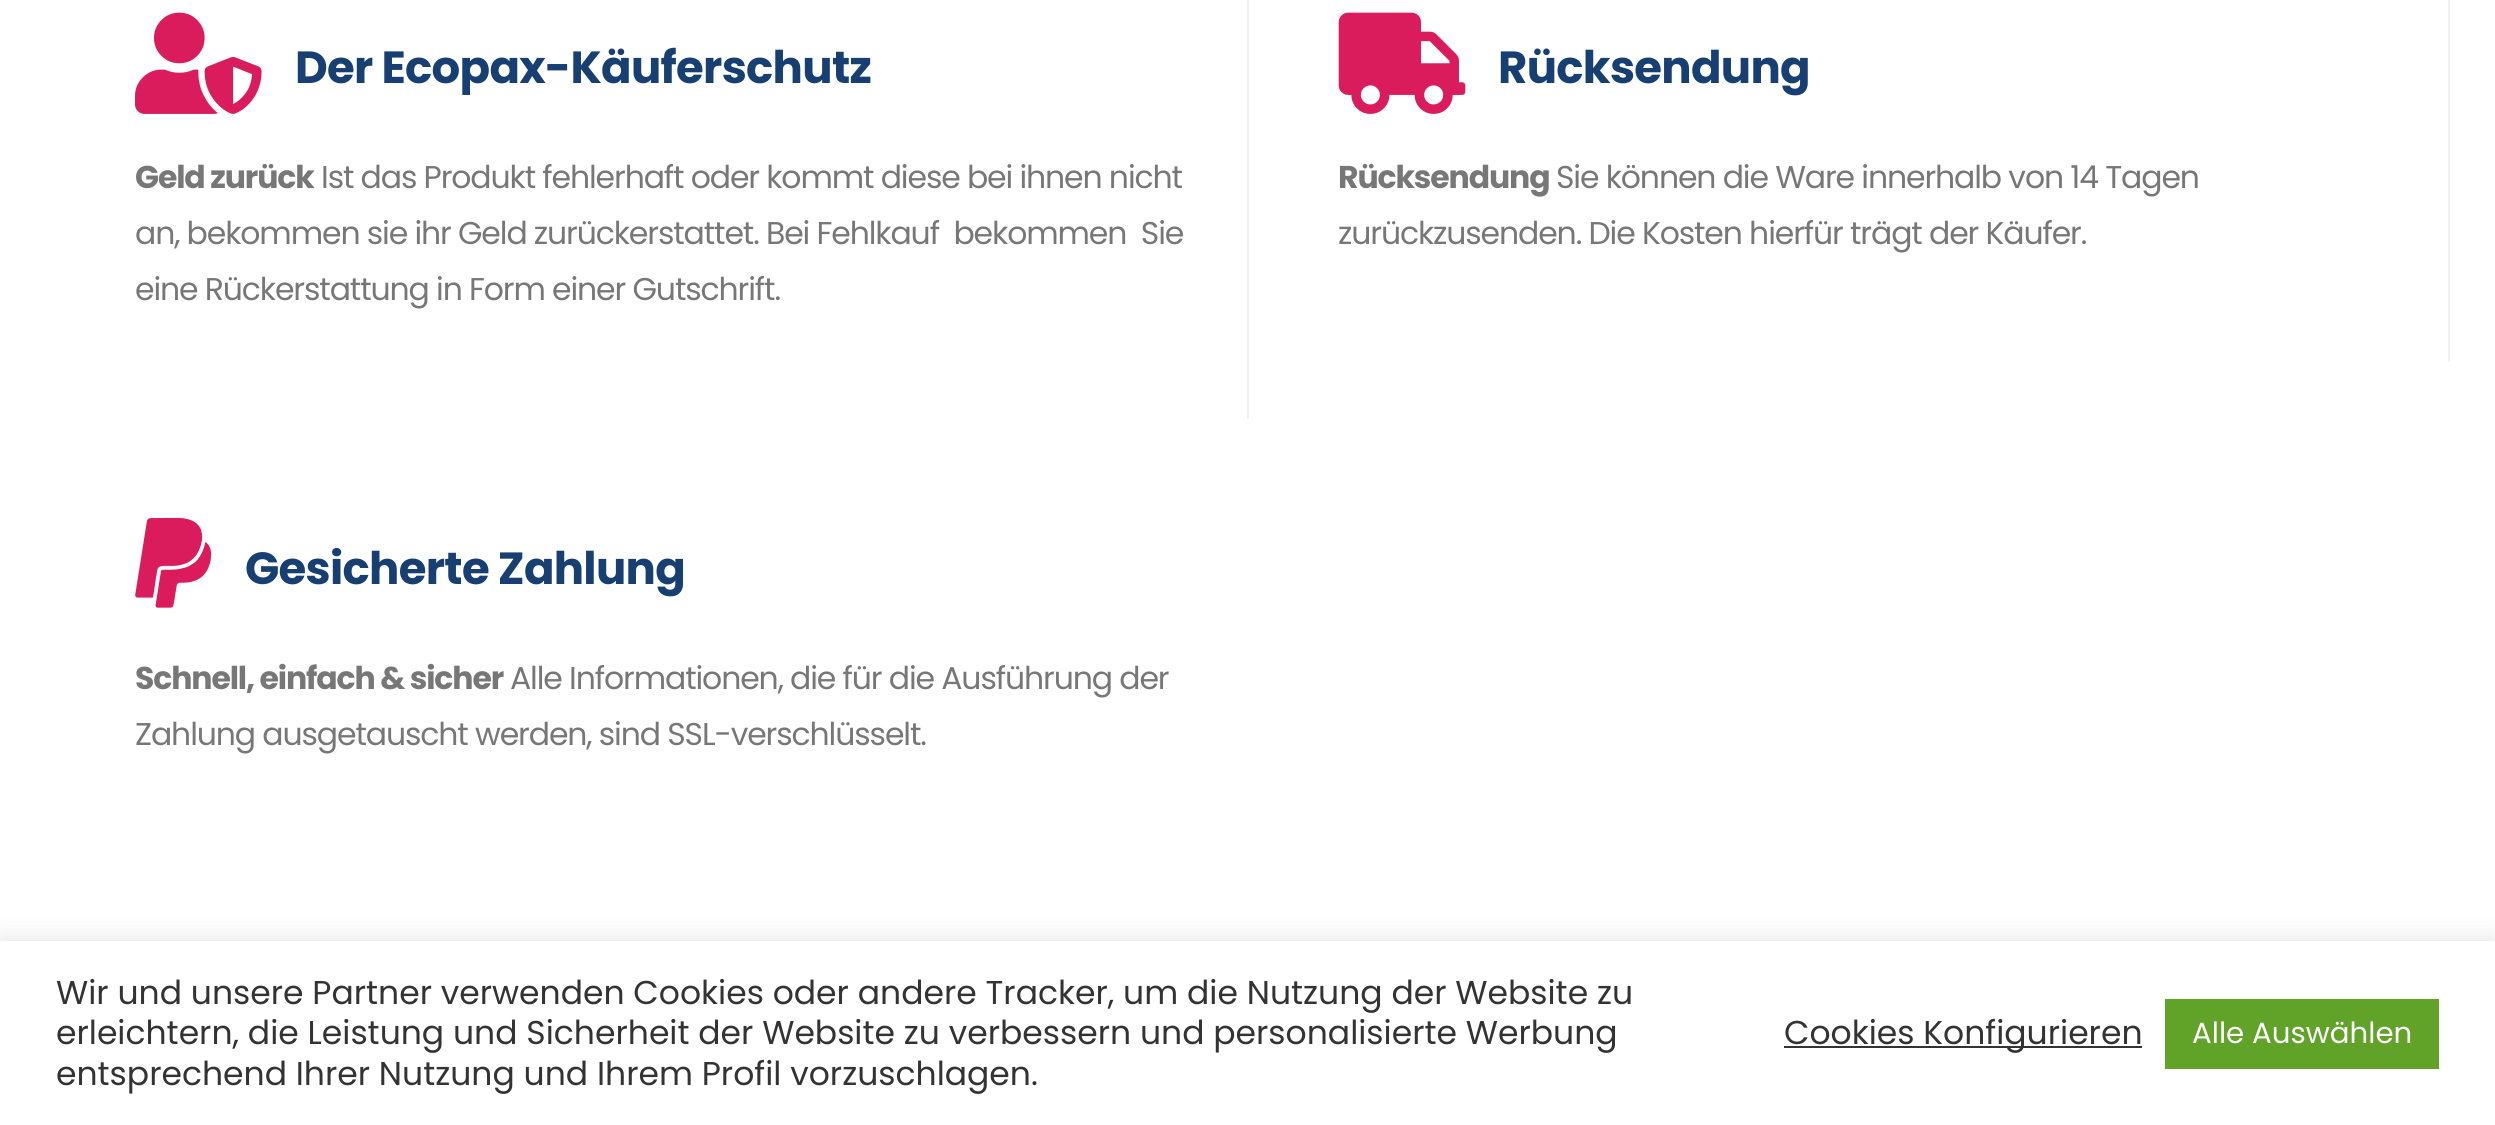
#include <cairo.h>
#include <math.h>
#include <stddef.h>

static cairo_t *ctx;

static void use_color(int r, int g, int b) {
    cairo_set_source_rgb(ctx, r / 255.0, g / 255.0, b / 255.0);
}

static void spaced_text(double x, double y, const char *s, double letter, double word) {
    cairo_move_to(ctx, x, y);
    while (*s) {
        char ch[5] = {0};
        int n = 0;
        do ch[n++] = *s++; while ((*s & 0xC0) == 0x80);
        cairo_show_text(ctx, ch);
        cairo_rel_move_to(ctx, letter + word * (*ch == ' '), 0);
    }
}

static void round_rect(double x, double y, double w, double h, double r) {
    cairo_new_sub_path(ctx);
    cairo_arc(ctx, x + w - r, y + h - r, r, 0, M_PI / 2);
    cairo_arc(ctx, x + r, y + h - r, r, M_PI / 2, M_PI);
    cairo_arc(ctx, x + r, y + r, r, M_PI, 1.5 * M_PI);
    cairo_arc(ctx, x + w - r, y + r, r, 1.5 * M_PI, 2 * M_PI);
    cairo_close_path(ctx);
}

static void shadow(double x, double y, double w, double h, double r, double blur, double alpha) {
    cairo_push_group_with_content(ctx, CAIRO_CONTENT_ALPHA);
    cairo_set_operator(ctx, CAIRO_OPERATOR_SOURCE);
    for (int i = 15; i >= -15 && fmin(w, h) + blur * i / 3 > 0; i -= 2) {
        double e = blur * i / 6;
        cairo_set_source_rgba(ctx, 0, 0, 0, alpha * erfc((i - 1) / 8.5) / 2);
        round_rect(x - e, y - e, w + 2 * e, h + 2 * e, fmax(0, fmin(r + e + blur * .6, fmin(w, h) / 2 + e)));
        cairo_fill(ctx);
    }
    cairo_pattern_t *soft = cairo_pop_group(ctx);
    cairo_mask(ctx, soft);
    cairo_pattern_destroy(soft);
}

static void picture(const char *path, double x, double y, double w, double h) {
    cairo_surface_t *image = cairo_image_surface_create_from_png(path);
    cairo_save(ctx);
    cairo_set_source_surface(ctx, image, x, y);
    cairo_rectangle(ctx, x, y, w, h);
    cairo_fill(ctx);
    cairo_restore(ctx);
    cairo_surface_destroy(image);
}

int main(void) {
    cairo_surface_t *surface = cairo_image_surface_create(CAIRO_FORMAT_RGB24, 2495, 1125);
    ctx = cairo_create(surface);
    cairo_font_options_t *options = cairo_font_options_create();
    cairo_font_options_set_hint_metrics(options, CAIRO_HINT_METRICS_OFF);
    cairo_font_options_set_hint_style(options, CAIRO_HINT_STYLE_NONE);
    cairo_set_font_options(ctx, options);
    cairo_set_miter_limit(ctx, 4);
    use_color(255, 255, 255);
    cairo_paint(ctx);
    use_color(238, 240, 244);
    cairo_rectangle(ctx, 1247, 0, 2, 419);
    cairo_fill(ctx);
    picture("img1.png", 135, 12, 127, 102);
    cairo_select_font_face(ctx, "Poppins", CAIRO_FONT_SLANT_NORMAL, CAIRO_FONT_WEIGHT_BOLD);
    cairo_set_font_size(ctx, 45);
    use_color(24, 63, 114);
    spaced_text(295, 83, "Der Ecopax-Käuferschutz", -0.7, 0);
    cairo_set_font_size(ctx, 31.5);
    use_color(119, 119, 119);
    spaced_text(135, 188, "Geld zurück", -1.12, 0);
    cairo_select_font_face(ctx, "Poppins", CAIRO_FONT_SLANT_NORMAL, CAIRO_FONT_WEIGHT_NORMAL);
    spaced_text(321, 188, "Ist das Produkt fehlerhaft oder kommt diese bei ihnen nicht", -1.12, 0);
    spaced_text(135, 244, "an, bekommen sie ihr Geld zurückerstattet. Bei Fehlkauf  bekommen  Sie", -1.12, 0);
    spaced_text(135, 300, "eine Rückerstattung in Form einer Gutschrift.", -1.12, 0);
    use_color(238, 240, 244);
    cairo_rectangle(ctx, 2448, 0, 2, 362);
    cairo_fill(ctx);
    picture("img2.png", 1338, 12, 128, 102);
    cairo_select_font_face(ctx, "Poppins", CAIRO_FONT_SLANT_NORMAL, CAIRO_FONT_WEIGHT_BOLD);
    cairo_set_font_size(ctx, 45);
    use_color(24, 63, 114);
    spaced_text(1498, 83, "Rücksendung", -0.7, 0);
    cairo_set_font_size(ctx, 31.5);
    use_color(119, 119, 119);
    spaced_text(1338, 188, "Rücksendung", -1.12, 0);
    cairo_select_font_face(ctx, "Poppins", CAIRO_FONT_SLANT_NORMAL, CAIRO_FONT_WEIGHT_NORMAL);
    spaced_text(1556, 188, "Sie können die Ware innerhalb von 14 Tagen", -1.12, 0);
    spaced_text(1338, 244, "zurückzusenden. Die Kosten hierfür trägt der Käufer.", -1.12, 0);
    picture("img3.png", 135, 517, 77, 91);
    cairo_select_font_face(ctx, "Poppins", CAIRO_FONT_SLANT_NORMAL, CAIRO_FONT_WEIGHT_BOLD);
    cairo_set_font_size(ctx, 45);
    use_color(24, 63, 114);
    spaced_text(245, 584, "Gesicherte Zahlung", -0.7, 0);
    cairo_set_font_size(ctx, 31.5);
    use_color(119, 119, 119);
    spaced_text(135, 689, "Schnell, einfach & sicher", -1.12, 0);
    cairo_select_font_face(ctx, "Poppins", CAIRO_FONT_SLANT_NORMAL, CAIRO_FONT_WEIGHT_NORMAL);
    spaced_text(510, 689, "Alle Informationen, die für die Ausführung der", -1.12, 0);
    spaced_text(135, 745, "Zahlung ausgetauscht werden, sind SSL-verschlüsselt.", -1.12, 0);
    use_color(172, 171, 171);
    shadow(0, 938, 2495, 185, 0, 11, 0.3);
    use_color(255, 255, 255);
    cairo_rectangle(ctx, 0, 941, 2495, 184);
    cairo_fill(ctx);
    cairo_set_font_size(ctx, 33);
    use_color(51, 51, 51);
    cairo_move_to(ctx, 56, 1004);
    cairo_show_text(ctx, "Wir und unsere Partner verwenden Cookies oder andere Tracker, um die Nutzung der Website zu");
    cairo_move_to(ctx, 56, 1044);
    cairo_show_text(ctx, "erleichtern, die Leistung und Sicherheit der Website zu verbessern und personalisierte Werbung");
    cairo_move_to(ctx, 56, 1085);
    cairo_show_text(ctx, "entsprechend Ihrer Nutzung und Ihrem Profil vorzuschlagen.");
    cairo_rectangle(ctx, 1784, 1046, 358, 2);
    cairo_fill(ctx);
    cairo_move_to(ctx, 1784, 1044);
    cairo_show_text(ctx, "Cookies Konfigurieren");
    use_color(97, 162, 41);
    cairo_rectangle(ctx, 2165, 999, 274, 70);
    cairo_fill(ctx);
    cairo_set_font_size(ctx, 29.25);
    use_color(255, 255, 255);
    cairo_move_to(ctx, 2192, 1043);
    cairo_show_text(ctx, "Alle Auswählen");
    cairo_surface_write_to_png(surface, "result.png");
    cairo_font_options_destroy(options);
    cairo_destroy(ctx);
    cairo_surface_destroy(surface);
    return 0;
}
